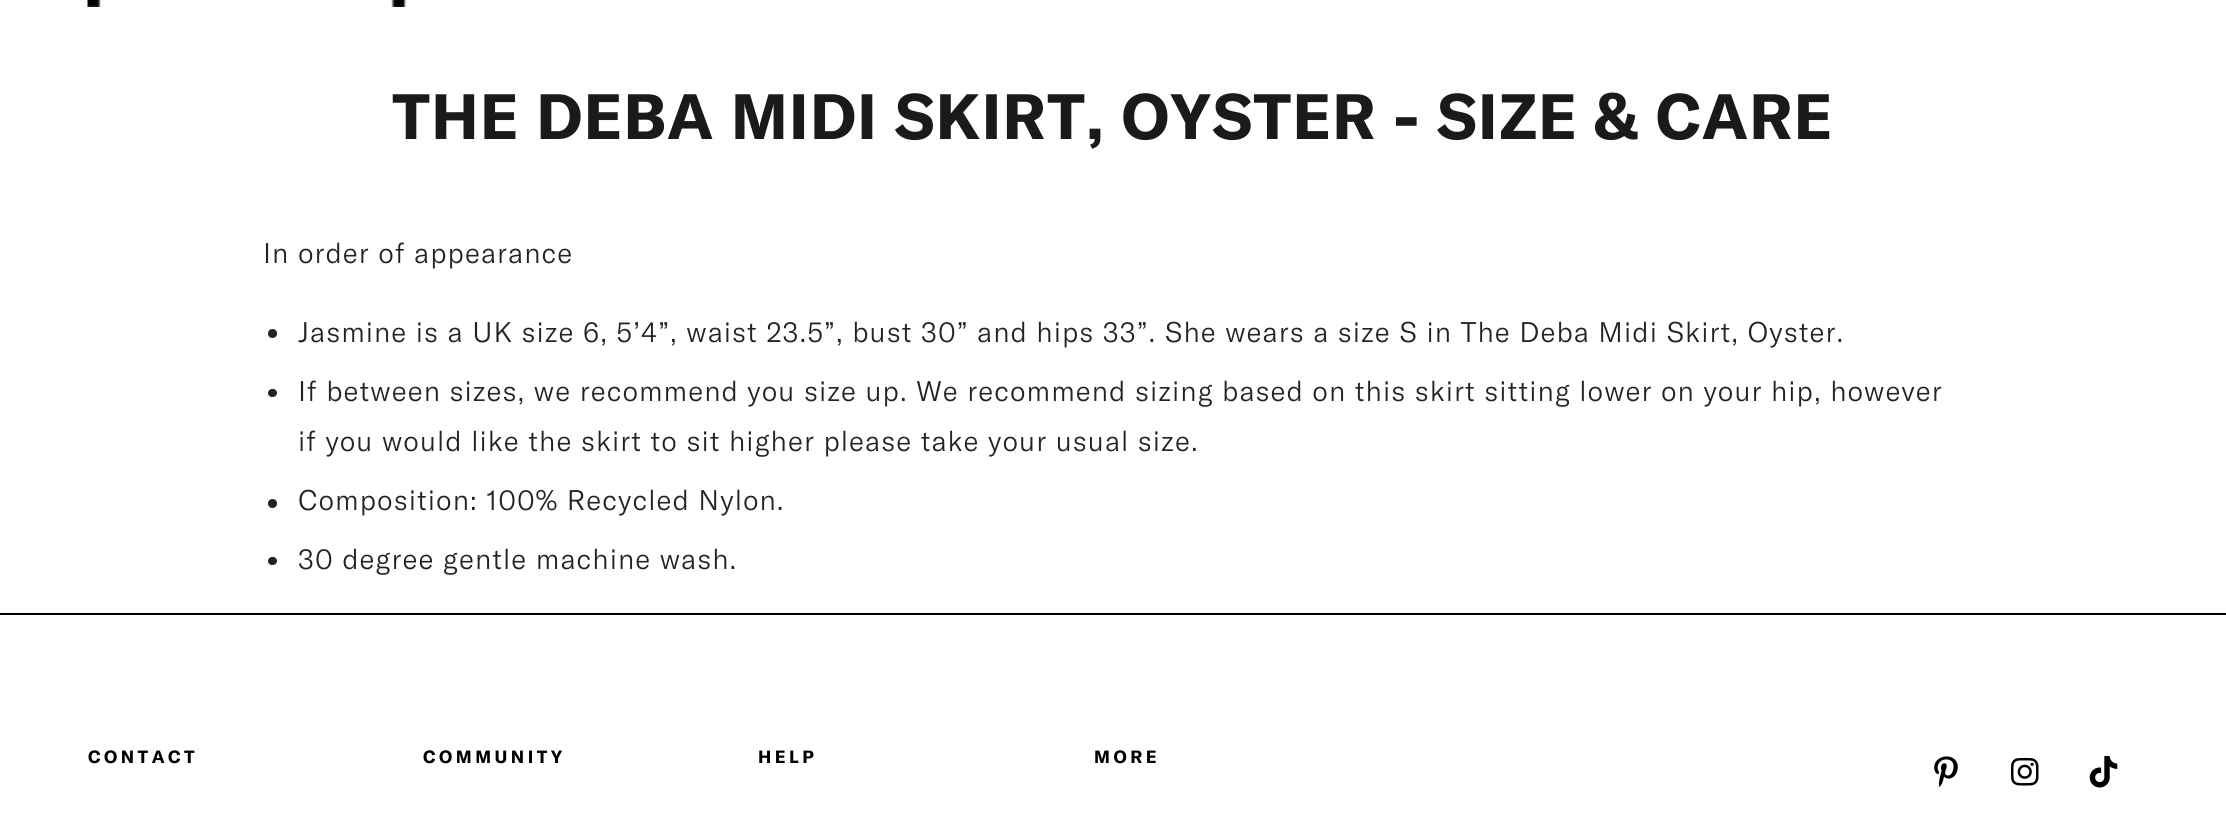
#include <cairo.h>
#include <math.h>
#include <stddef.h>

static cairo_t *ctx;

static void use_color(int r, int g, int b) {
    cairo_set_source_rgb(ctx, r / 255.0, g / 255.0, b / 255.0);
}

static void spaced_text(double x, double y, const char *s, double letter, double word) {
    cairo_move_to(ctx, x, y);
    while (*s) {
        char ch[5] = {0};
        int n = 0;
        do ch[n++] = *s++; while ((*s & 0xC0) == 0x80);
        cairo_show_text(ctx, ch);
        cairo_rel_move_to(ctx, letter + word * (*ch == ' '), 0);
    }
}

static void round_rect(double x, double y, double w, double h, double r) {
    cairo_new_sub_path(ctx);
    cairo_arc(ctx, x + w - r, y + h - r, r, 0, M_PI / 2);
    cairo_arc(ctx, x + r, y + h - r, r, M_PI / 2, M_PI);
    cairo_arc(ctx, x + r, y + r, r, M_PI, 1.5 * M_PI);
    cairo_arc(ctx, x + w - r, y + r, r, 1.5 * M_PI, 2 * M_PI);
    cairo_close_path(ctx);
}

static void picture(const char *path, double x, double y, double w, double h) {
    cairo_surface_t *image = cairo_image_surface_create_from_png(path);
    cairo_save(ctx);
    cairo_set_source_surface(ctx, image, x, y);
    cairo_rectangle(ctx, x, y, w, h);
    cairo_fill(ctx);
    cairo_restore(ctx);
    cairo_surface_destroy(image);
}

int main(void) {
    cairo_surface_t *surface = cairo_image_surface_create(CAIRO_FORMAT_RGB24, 2226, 834);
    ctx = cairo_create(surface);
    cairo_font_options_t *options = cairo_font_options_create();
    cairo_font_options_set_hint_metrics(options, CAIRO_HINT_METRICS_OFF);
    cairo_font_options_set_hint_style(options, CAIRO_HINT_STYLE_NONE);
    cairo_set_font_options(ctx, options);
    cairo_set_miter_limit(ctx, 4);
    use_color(255, 255, 255);
    cairo_paint(ctx);
    picture("img1.png", 87, 0, 320, 7);
    cairo_select_font_face(ctx, "GT America", CAIRO_FONT_SLANT_NORMAL, CAIRO_FONT_WEIGHT_BOLD);
    cairo_set_font_size(ctx, 63);
    use_color(26, 27, 24);
    spaced_text(392, 139, "THE DEBA MIDI SKIRT, OYSTER - SIZE & CARE", 0.95, 0);
    cairo_select_font_face(ctx, "GT America Light", CAIRO_FONT_SLANT_NORMAL, CAIRO_FONT_WEIGHT_NORMAL);
    cairo_set_font_size(ctx, 28);
    use_color(33, 35, 38);
    spaced_text(263, 263, "In order of appearance", 1.05, 0);
    cairo_new_path(ctx);
    cairo_arc(ctx, 272.5, 333.5, 4.5, 0, 2 * M_PI);
    cairo_fill(ctx);
    spaced_text(298, 342, "Jasmine is a UK size 6, 5’4”, waist 23.5”, bust 30” and hips 33”. She wears a size S in The Deba Midi Skirt, Oyster.", 1.05, 0);
    round_rect(268, 389, 9, 8, 4);
    cairo_fill(ctx);
    spaced_text(298, 401, "If between sizes, we recommend you size up. We recommend sizing based on this skirt sitting lower on your hip, however", 1.05, 0);
    spaced_text(298, 451, "if you would like the skirt to sit higher please take your usual size.", 1.05, 0);
    cairo_new_path(ctx);
    cairo_arc(ctx, 272.5, 503.5, 4.5, 0, 2 * M_PI);
    cairo_fill(ctx);
    spaced_text(298, 510, "Composition: 100% Recycled Nylon.", 1.05, 0);
    round_rect(268, 557, 9, 8, 4);
    cairo_fill(ctx);
    spaced_text(298, 569, "30 degree gentle machine wash.", 1.05, 0);
    use_color(0, 0, 0);
    cairo_rectangle(ctx, 0, 613, 2226, 2);
    cairo_fill(ctx);
    cairo_select_font_face(ctx, "GT America", CAIRO_FONT_SLANT_NORMAL, CAIRO_FONT_WEIGHT_BOLD);
    cairo_set_font_size(ctx, 17.5);
    spaced_text(88, 763, "CONTACT", 3.5, 0);
    spaced_text(423, 763, "COMMUNITY", 3.5, 0);
    spaced_text(758, 763, "HELP", 3.5, 0);
    spaced_text(1094, 763, "MORE", 3.5, 0);
    picture("img2.png", 1934, 756, 24, 31);
    picture("img3.png", 2010, 757, 29, 29);
    picture("img4.png", 2089, 756, 29, 32);
    cairo_surface_write_to_png(surface, "result.png");
    cairo_font_options_destroy(options);
    cairo_destroy(ctx);
    cairo_surface_destroy(surface);
    return 0;
}
